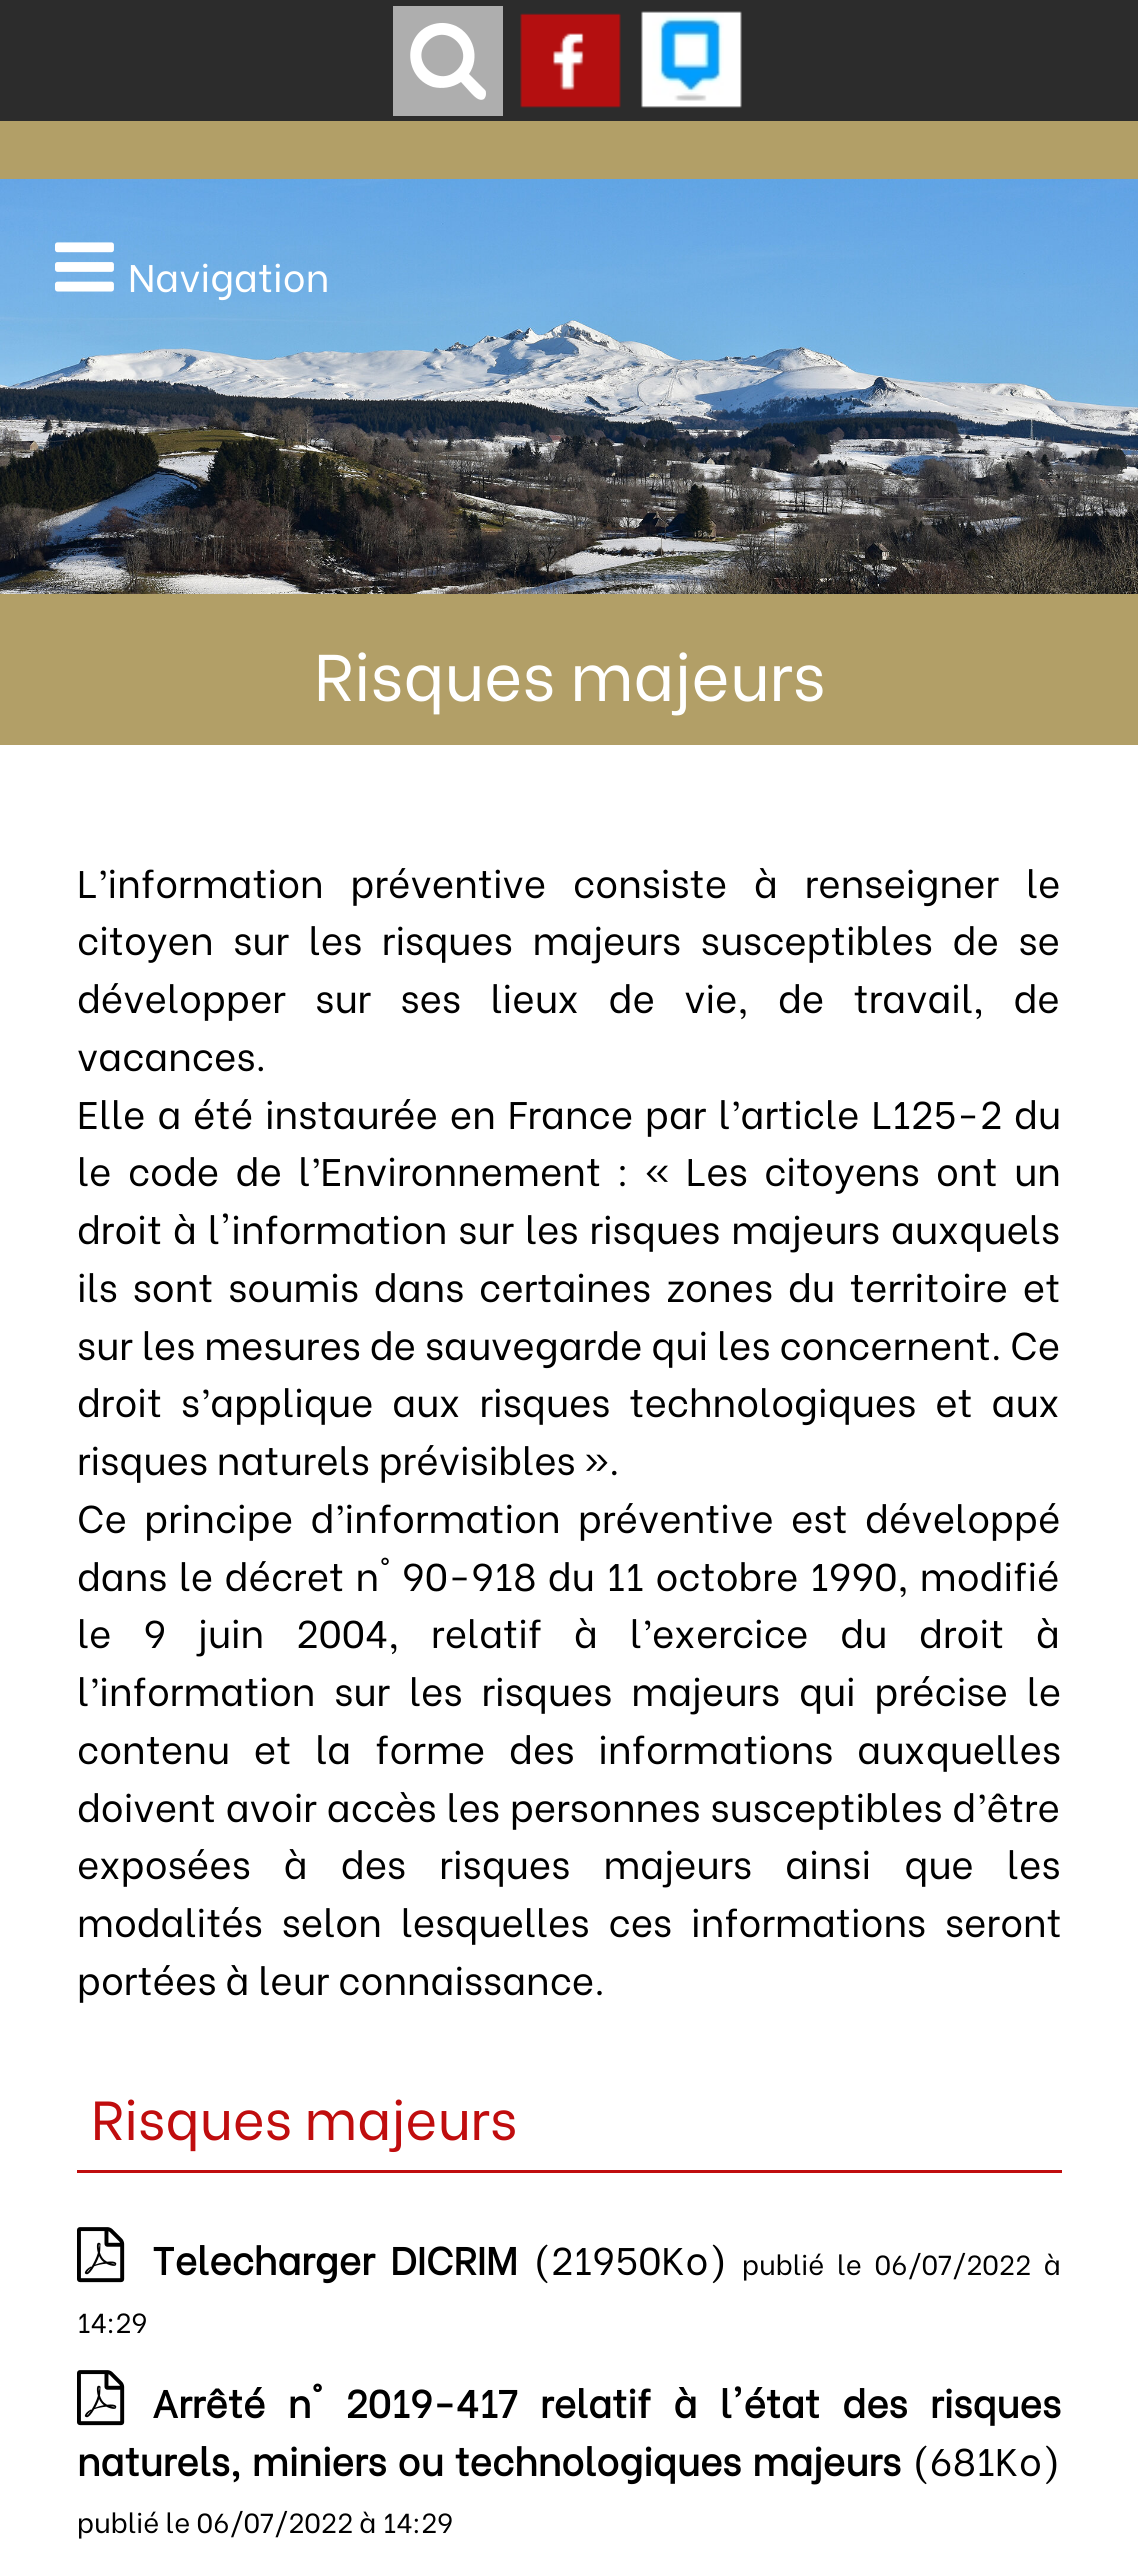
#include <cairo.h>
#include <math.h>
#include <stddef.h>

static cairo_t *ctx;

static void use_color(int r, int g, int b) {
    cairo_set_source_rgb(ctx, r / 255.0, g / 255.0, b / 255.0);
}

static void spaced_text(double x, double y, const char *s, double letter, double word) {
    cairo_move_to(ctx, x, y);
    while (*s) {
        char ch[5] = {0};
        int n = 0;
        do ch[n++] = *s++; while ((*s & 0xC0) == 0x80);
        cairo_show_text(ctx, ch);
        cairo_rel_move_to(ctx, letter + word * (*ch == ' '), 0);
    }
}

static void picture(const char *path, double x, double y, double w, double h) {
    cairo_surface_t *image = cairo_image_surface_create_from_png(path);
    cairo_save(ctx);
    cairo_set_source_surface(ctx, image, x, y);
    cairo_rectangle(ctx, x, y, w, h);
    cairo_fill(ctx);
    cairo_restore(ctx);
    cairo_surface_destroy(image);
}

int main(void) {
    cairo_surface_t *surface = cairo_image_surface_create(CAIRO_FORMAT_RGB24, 1138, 2575);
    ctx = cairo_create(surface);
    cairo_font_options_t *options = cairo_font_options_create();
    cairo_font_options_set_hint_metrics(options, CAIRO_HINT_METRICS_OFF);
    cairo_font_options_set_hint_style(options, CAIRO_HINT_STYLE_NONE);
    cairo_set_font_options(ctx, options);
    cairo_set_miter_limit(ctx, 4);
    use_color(255, 255, 255);
    cairo_paint(ctx);
    use_color(44, 44, 44);
    cairo_rectangle(ctx, 0, 0, 1138, 121);
    cairo_fill(ctx);
    use_color(174, 174, 174);
    cairo_rectangle(ctx, 393, 6, 110, 110);
    cairo_fill(ctx);
    use_color(255, 255, 255);
    cairo_new_path(ctx);
    cairo_move_to(ctx, 457, 70);
    cairo_curve_to(ctx, 476, 51, 447, 22, 428, 41);
    cairo_curve_to(ctx, 408, 60, 438, 89, 457, 70);
    cairo_close_path(ctx);
    cairo_move_to(ctx, 486, 94);
    cairo_curve_to(ctx, 486, 96, 485, 98, 484, 99);
    cairo_curve_to(ctx, 479, 102, 474, 96, 471, 93);
    cairo_line_to(ctx, 461, 82);
    cairo_curve_to(ctx, 452, 88, 442, 89, 433, 87);
    cairo_curve_to(ctx, 402, 77, 403, 32, 434, 24);
    cairo_curve_to(ctx, 442, 22, 449, 23, 456, 26);
    cairo_curve_to(ctx, 474, 35, 480, 58, 469, 74);
    cairo_line_to(ctx, 485, 90);
    cairo_curve_to(ctx, 486, 91, 486, 92, 486, 94);
    cairo_close_path(ctx);
    cairo_fill(ctx);
    picture("img1.png", 520, 13, 101, 95);
    picture("img2.png", 641, 11, 101, 97);
    picture("img3.png", 0, 179, 1138, 415);
    use_color(178, 159, 103);
    cairo_rectangle(ctx, 0, 121, 1138, 58);
    cairo_fill(ctx);
    picture("img4.png", 55, 242, 59, 50);
    cairo_select_font_face(ctx, "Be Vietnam", CAIRO_FONT_SLANT_NORMAL, CAIRO_FONT_WEIGHT_NORMAL);
    cairo_set_font_size(ctx, 38.5);
    use_color(255, 255, 255);
    cairo_move_to(ctx, 128, 292);
    cairo_show_text(ctx, "Navigation");
    use_color(178, 159, 103);
    cairo_rectangle(ctx, 0, 594, 1138, 151);
    cairo_fill(ctx);
    cairo_set_font_size(ctx, 66);
    use_color(255, 255, 255);
    cairo_move_to(ctx, 314, 701);
    cairo_show_text(ctx, "Risques majeurs");
    cairo_set_font_size(ctx, 38.5);
    use_color(0, 0, 0);
    spaced_text(77, 898, "L’information préventive consiste à renseigner le", 0, 18);
    spaced_text(77, 955, "citoyen sur les risques majeurs susceptibles de se", 0, 10.75);
    spaced_text(77, 1013, "développer sur ses lieux de vie, de travail, de", 0, 20.5);
    cairo_move_to(ctx, 77, 1071);
    cairo_show_text(ctx, "vacances.");
    spaced_text(77, 1129, "Elle a été instaurée en France par l’article L125-2 du", 0, 3);
    spaced_text(77, 1186, "le code de l’Environnement : « Les citoyens ont un", 0, 7.5);
    spaced_text(77, 1244, "droit à l'information sur les risques majeurs auxquels", 0, 2);
    spaced_text(77, 1302, "ils sont soumis dans certaines zones du territoire et", 0, 6);
    cairo_move_to(ctx, 77, 1360);
    cairo_show_text(ctx, "sur les mesures de sauvegarde qui les concernent. Ce");
    spaced_text(77, 1417, "droit s’applique aux risques technologiques et aux", 0, 10);
    cairo_move_to(ctx, 77, 1475);
    cairo_show_text(ctx, "risques naturels prévisibles ».");
    spaced_text(77, 1533, "Ce principe d’information préventive est développé", 0, 8.5);
    spaced_text(77, 1591, "dans le décret n° 90-918 du 11 octobre 1990, modifié", 0, 2.5);
    spaced_text(77, 1648, "le 9 juin 2004, relatif à l’exercice du droit à", 0, 23);
    spaced_text(77, 1706, "l’information sur les risques majeurs qui précise le", 0, 10);
    spaced_text(77, 1764, "contenu et la forme des informations auxquelles", 0, 15);
    spaced_text(77, 1822, "doivent avoir accès les personnes susceptibles d’être", 0, 1);
    spaced_text(77, 1879, "exposées à des risques majeurs ainsi que les", 0, 24.25);
    spaced_text(77, 1937, "modalités selon lesquelles ces informations seront", 0, 10);
    cairo_move_to(ctx, 77, 1995);
    cairo_show_text(ctx, "portées à leur connaissance.");
    use_color(192, 13, 14);
    cairo_rectangle(ctx, 77, 2170, 985, 3);
    cairo_fill(ctx);
    cairo_set_font_size(ctx, 55);
    cairo_move_to(ctx, 91, 2140);
    cairo_show_text(ctx, "Risques majeurs");
    picture("img5.png", 77, 2227, 48, 56);
    cairo_select_font_face(ctx, "Be Vietnam", CAIRO_FONT_SLANT_NORMAL, CAIRO_FONT_WEIGHT_BOLD);
    cairo_set_font_size(ctx, 38.5);
    use_color(0, 0, 0);
    spaced_text(152, 2275, "Telecharger DICRIM", 0, 6.5);
    cairo_select_font_face(ctx, "Be Vietnam", CAIRO_FONT_SLANT_NORMAL, CAIRO_FONT_WEIGHT_NORMAL);
    cairo_move_to(ctx, 533, 2275);
    cairo_show_text(ctx, "(21950Ko)");
    cairo_set_font_size(ctx, 27.5);
    spaced_text(742, 2275, "publié le 06/07/2022 à", 0, 6.5);
    cairo_move_to(ctx, 77, 2333);
    cairo_show_text(ctx, "14:29");
    picture("img5.png", 77, 2370, 48, 56);
    cairo_select_font_face(ctx, "Be Vietnam", CAIRO_FONT_SLANT_NORMAL, CAIRO_FONT_WEIGHT_BOLD);
    cairo_set_font_size(ctx, 38.5);
    spaced_text(152, 2418, "Arrêté n° 2019-417 relatif à l'état des risques", 0, 13.5);
    spaced_text(77, 2476, "naturels, miniers ou technologiques majeurs", 0, 2);
    cairo_select_font_face(ctx, "Be Vietnam", CAIRO_FONT_SLANT_NORMAL, CAIRO_FONT_WEIGHT_NORMAL);
    cairo_move_to(ctx, 912, 2476);
    cairo_show_text(ctx, "(681Ko)");
    cairo_set_font_size(ctx, 27.5);
    cairo_move_to(ctx, 77, 2533);
    cairo_show_text(ctx, "publié le 06/07/2022 à 14:29");
    cairo_surface_write_to_png(surface, "result.png");
    cairo_font_options_destroy(options);
    cairo_destroy(ctx);
    cairo_surface_destroy(surface);
    return 0;
}
